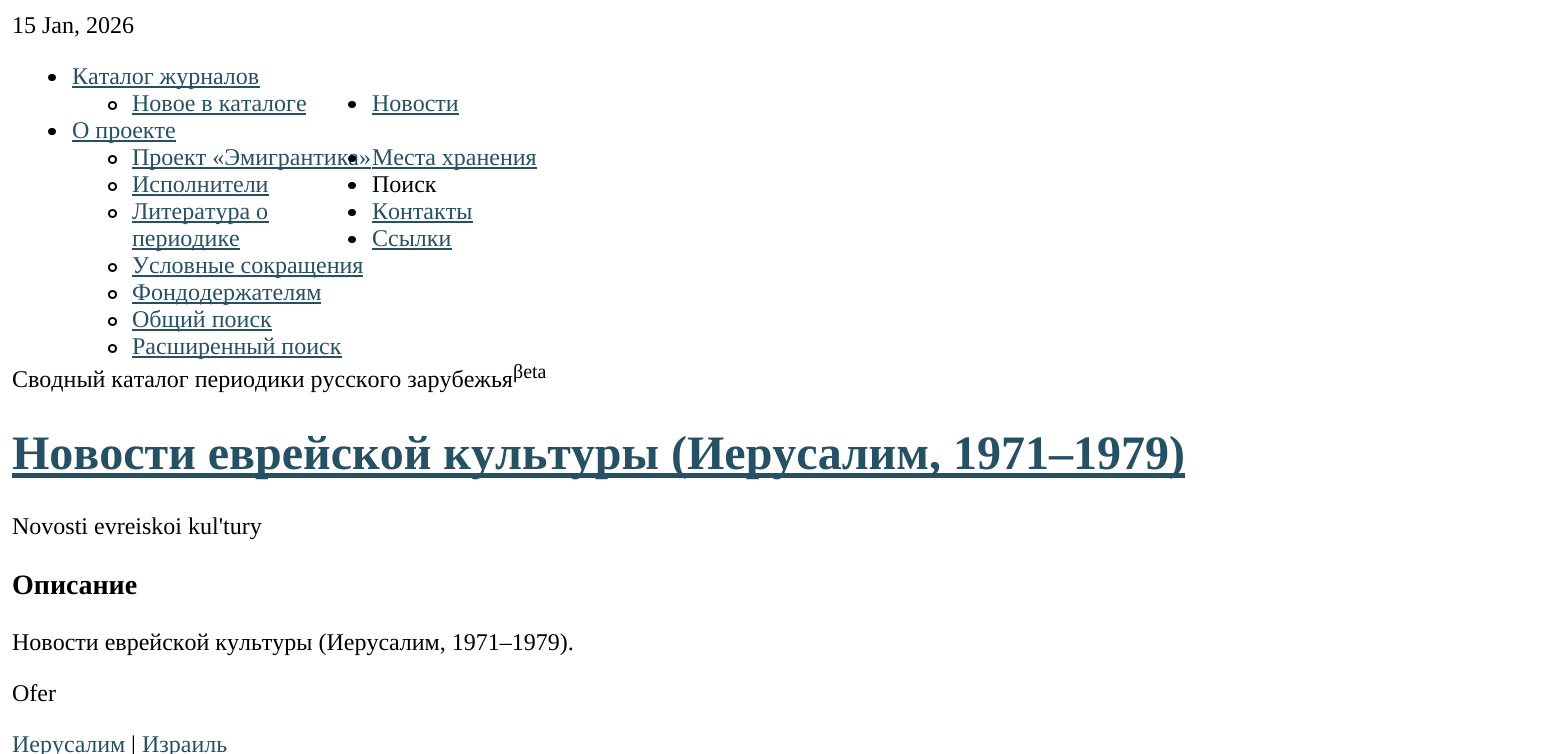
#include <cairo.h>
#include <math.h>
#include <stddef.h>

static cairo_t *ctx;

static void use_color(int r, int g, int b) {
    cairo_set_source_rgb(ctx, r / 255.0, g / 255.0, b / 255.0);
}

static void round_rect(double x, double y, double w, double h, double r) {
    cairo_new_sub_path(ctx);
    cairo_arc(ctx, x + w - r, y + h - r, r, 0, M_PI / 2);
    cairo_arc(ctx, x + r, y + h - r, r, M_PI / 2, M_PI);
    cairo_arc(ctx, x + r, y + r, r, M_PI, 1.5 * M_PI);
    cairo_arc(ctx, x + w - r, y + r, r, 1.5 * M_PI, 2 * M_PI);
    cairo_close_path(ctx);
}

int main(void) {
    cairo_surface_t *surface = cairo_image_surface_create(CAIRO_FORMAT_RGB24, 1559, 754);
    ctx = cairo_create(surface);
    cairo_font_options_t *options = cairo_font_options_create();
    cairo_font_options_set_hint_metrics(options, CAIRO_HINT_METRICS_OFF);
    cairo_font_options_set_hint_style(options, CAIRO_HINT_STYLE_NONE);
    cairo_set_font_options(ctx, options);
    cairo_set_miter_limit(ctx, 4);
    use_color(255, 255, 255);
    cairo_paint(ctx);
    cairo_select_font_face(ctx, "Liberation Serif", CAIRO_FONT_SLANT_NORMAL, CAIRO_FONT_WEIGHT_NORMAL);
    cairo_set_font_size(ctx, 24);
    use_color(0, 0, 0);
    cairo_move_to(ctx, 12, 33);
    cairo_show_text(ctx, "15 Jan, 2026");
    round_rect(48, 74, 8, 7, 3.5);
    cairo_fill(ctx);
    use_color(38, 80, 99);
    cairo_rectangle(ctx, 72, 86, 188, 2);
    cairo_fill(ctx);
    cairo_move_to(ctx, 72, 84);
    cairo_show_text(ctx, "Каталог журналов");
    cairo_new_path(ctx);
    cairo_arc(ctx, 112.5, 105.5, 3.5, 0, 2 * M_PI);
    use_color(0, 0, 0);
    cairo_stroke(ctx);
    use_color(38, 80, 99);
    cairo_move_to(ctx, 132, 111);
    cairo_show_text(ctx, "Новое в каталоге");
    cairo_rectangle(ctx, 132, 113, 174, 2);
    cairo_fill(ctx);
    use_color(0, 0, 0);
    round_rect(348, 101, 8, 7, 3.5);
    cairo_fill(ctx);
    use_color(38, 80, 99);
    cairo_move_to(ctx, 372, 111);
    cairo_show_text(ctx, "Новости");
    cairo_rectangle(ctx, 372, 113, 87, 2);
    cairo_fill(ctx);
    use_color(0, 0, 0);
    round_rect(48, 128, 8, 7, 3.5);
    cairo_fill(ctx);
    use_color(38, 80, 99);
    cairo_rectangle(ctx, 72, 140, 104, 2);
    cairo_fill(ctx);
    cairo_move_to(ctx, 72, 138);
    cairo_show_text(ctx, "О проекте");
    cairo_new_path(ctx);
    cairo_arc(ctx, 112.5, 159.5, 3.5, 0, 2 * M_PI);
    use_color(0, 0, 0);
    cairo_stroke(ctx);
    use_color(38, 80, 99);
    cairo_rectangle(ctx, 132, 167, 239, 2);
    cairo_fill(ctx);
    cairo_move_to(ctx, 132, 165);
    cairo_show_text(ctx, "Проект «Эмигрантика»");
    cairo_new_path(ctx);
    cairo_arc(ctx, 112.5, 186.5, 3.5, 0, 2 * M_PI);
    use_color(0, 0, 0);
    cairo_stroke(ctx);
    use_color(38, 80, 99);
    cairo_move_to(ctx, 132, 192);
    cairo_show_text(ctx, "Исполнители");
    cairo_rectangle(ctx, 132, 194, 137, 2);
    cairo_fill(ctx);
    cairo_arc(ctx, 112.5, 213.5, 3.5, 0, 2 * M_PI);
    use_color(0, 0, 0);
    cairo_stroke(ctx);
    use_color(38, 80, 99);
    cairo_rectangle(ctx, 132, 221, 137, 2);
    cairo_fill(ctx);
    cairo_move_to(ctx, 132, 219);
    cairo_show_text(ctx, "Литература о");
    cairo_rectangle(ctx, 132, 248, 108, 2);
    cairo_fill(ctx);
    cairo_move_to(ctx, 132, 246);
    cairo_show_text(ctx, "периодике");
    cairo_new_path(ctx);
    cairo_arc(ctx, 112.5, 267.5, 3.5, 0, 2 * M_PI);
    use_color(0, 0, 0);
    cairo_stroke(ctx);
    use_color(38, 80, 99);
    cairo_rectangle(ctx, 132, 275, 231, 2);
    cairo_fill(ctx);
    cairo_move_to(ctx, 132, 273);
    cairo_show_text(ctx, "Условные сокращения");
    cairo_new_path(ctx);
    cairo_arc(ctx, 112.5, 294.5, 3.5, 0, 2 * M_PI);
    use_color(0, 0, 0);
    cairo_stroke(ctx);
    use_color(38, 80, 99);
    cairo_rectangle(ctx, 132, 302, 189, 2);
    cairo_fill(ctx);
    cairo_move_to(ctx, 132, 300);
    cairo_show_text(ctx, "Фондодержателям");
    use_color(0, 0, 0);
    round_rect(348, 155, 8, 7, 3.5);
    cairo_fill(ctx);
    use_color(38, 80, 99);
    cairo_rectangle(ctx, 372, 167, 165, 2);
    cairo_fill(ctx);
    cairo_move_to(ctx, 372, 165);
    cairo_show_text(ctx, "Места хранения");
    use_color(0, 0, 0);
    round_rect(348, 182, 8, 7, 3.5);
    cairo_fill(ctx);
    cairo_move_to(ctx, 372, 192);
    cairo_show_text(ctx, "Поиск");
    cairo_new_path(ctx);
    cairo_arc(ctx, 112.5, 321.5, 3.5, 0, 2 * M_PI);
    cairo_stroke(ctx);
    use_color(38, 80, 99);
    cairo_rectangle(ctx, 132, 329, 140, 2);
    cairo_fill(ctx);
    cairo_move_to(ctx, 132, 327);
    cairo_show_text(ctx, "Общий поиск");
    cairo_new_path(ctx);
    cairo_arc(ctx, 112.5, 348.5, 3.5, 0, 2 * M_PI);
    use_color(0, 0, 0);
    cairo_stroke(ctx);
    use_color(38, 80, 99);
    cairo_rectangle(ctx, 132, 356, 210, 2);
    cairo_fill(ctx);
    cairo_move_to(ctx, 132, 354);
    cairo_show_text(ctx, "Расширенный поиск");
    use_color(0, 0, 0);
    round_rect(348, 209, 8, 7, 3.5);
    cairo_fill(ctx);
    use_color(38, 80, 99);
    cairo_move_to(ctx, 372, 219);
    cairo_show_text(ctx, "Контакты");
    cairo_rectangle(ctx, 372, 221, 101, 2);
    cairo_fill(ctx);
    use_color(0, 0, 0);
    round_rect(348, 236, 8, 7, 3.5);
    cairo_fill(ctx);
    use_color(38, 80, 99);
    cairo_move_to(ctx, 372, 246);
    cairo_show_text(ctx, "Ссылки");
    cairo_rectangle(ctx, 372, 248, 80, 2);
    cairo_fill(ctx);
    use_color(0, 0, 0);
    cairo_move_to(ctx, 12, 387);
    cairo_show_text(ctx, "Сводный каталог периодики русского зарубежья");
    cairo_set_font_size(ctx, 20);
    cairo_move_to(ctx, 513, 378);
    cairo_show_text(ctx, "βeta");
    use_color(38, 80, 99);
    cairo_rectangle(ctx, 12, 473, 1173, 5);
    cairo_fill(ctx);
    cairo_select_font_face(ctx, "Liberation Serif", CAIRO_FONT_SLANT_NORMAL, CAIRO_FONT_WEIGHT_BOLD);
    cairo_set_font_size(ctx, 48);
    cairo_move_to(ctx, 12, 469);
    cairo_show_text(ctx, "Новости еврейской культуры (Иерусалим, 1971–1979)");
    cairo_select_font_face(ctx, "Liberation Serif", CAIRO_FONT_SLANT_NORMAL, CAIRO_FONT_WEIGHT_NORMAL);
    cairo_set_font_size(ctx, 24);
    use_color(0, 0, 0);
    cairo_move_to(ctx, 12, 534);
    cairo_show_text(ctx, "Novosti evreiskoi kul'tury");
    cairo_select_font_face(ctx, "Liberation Serif", CAIRO_FONT_SLANT_NORMAL, CAIRO_FONT_WEIGHT_BOLD);
    cairo_set_font_size(ctx, 28);
    cairo_move_to(ctx, 12, 594);
    cairo_show_text(ctx, "Описание");
    cairo_select_font_face(ctx, "Liberation Serif", CAIRO_FONT_SLANT_NORMAL, CAIRO_FONT_WEIGHT_NORMAL);
    cairo_set_font_size(ctx, 24);
    cairo_move_to(ctx, 12, 650);
    cairo_show_text(ctx, "Новости еврейской культуры (Иерусалим, 1971–1979).");
    cairo_move_to(ctx, 12, 701);
    cairo_show_text(ctx, "Ofer");
    use_color(38, 80, 99);
    cairo_move_to(ctx, 12, 752);
    cairo_show_text(ctx, "Иерусалим");
    use_color(0, 0, 0);
    cairo_move_to(ctx, 131, 752);
    cairo_show_text(ctx, "|");
    use_color(38, 80, 99);
    cairo_move_to(ctx, 142, 752);
    cairo_show_text(ctx, "Израиль");
    cairo_surface_write_to_png(surface, "result.png");
    cairo_font_options_destroy(options);
    cairo_destroy(ctx);
    cairo_surface_destroy(surface);
    return 0;
}
